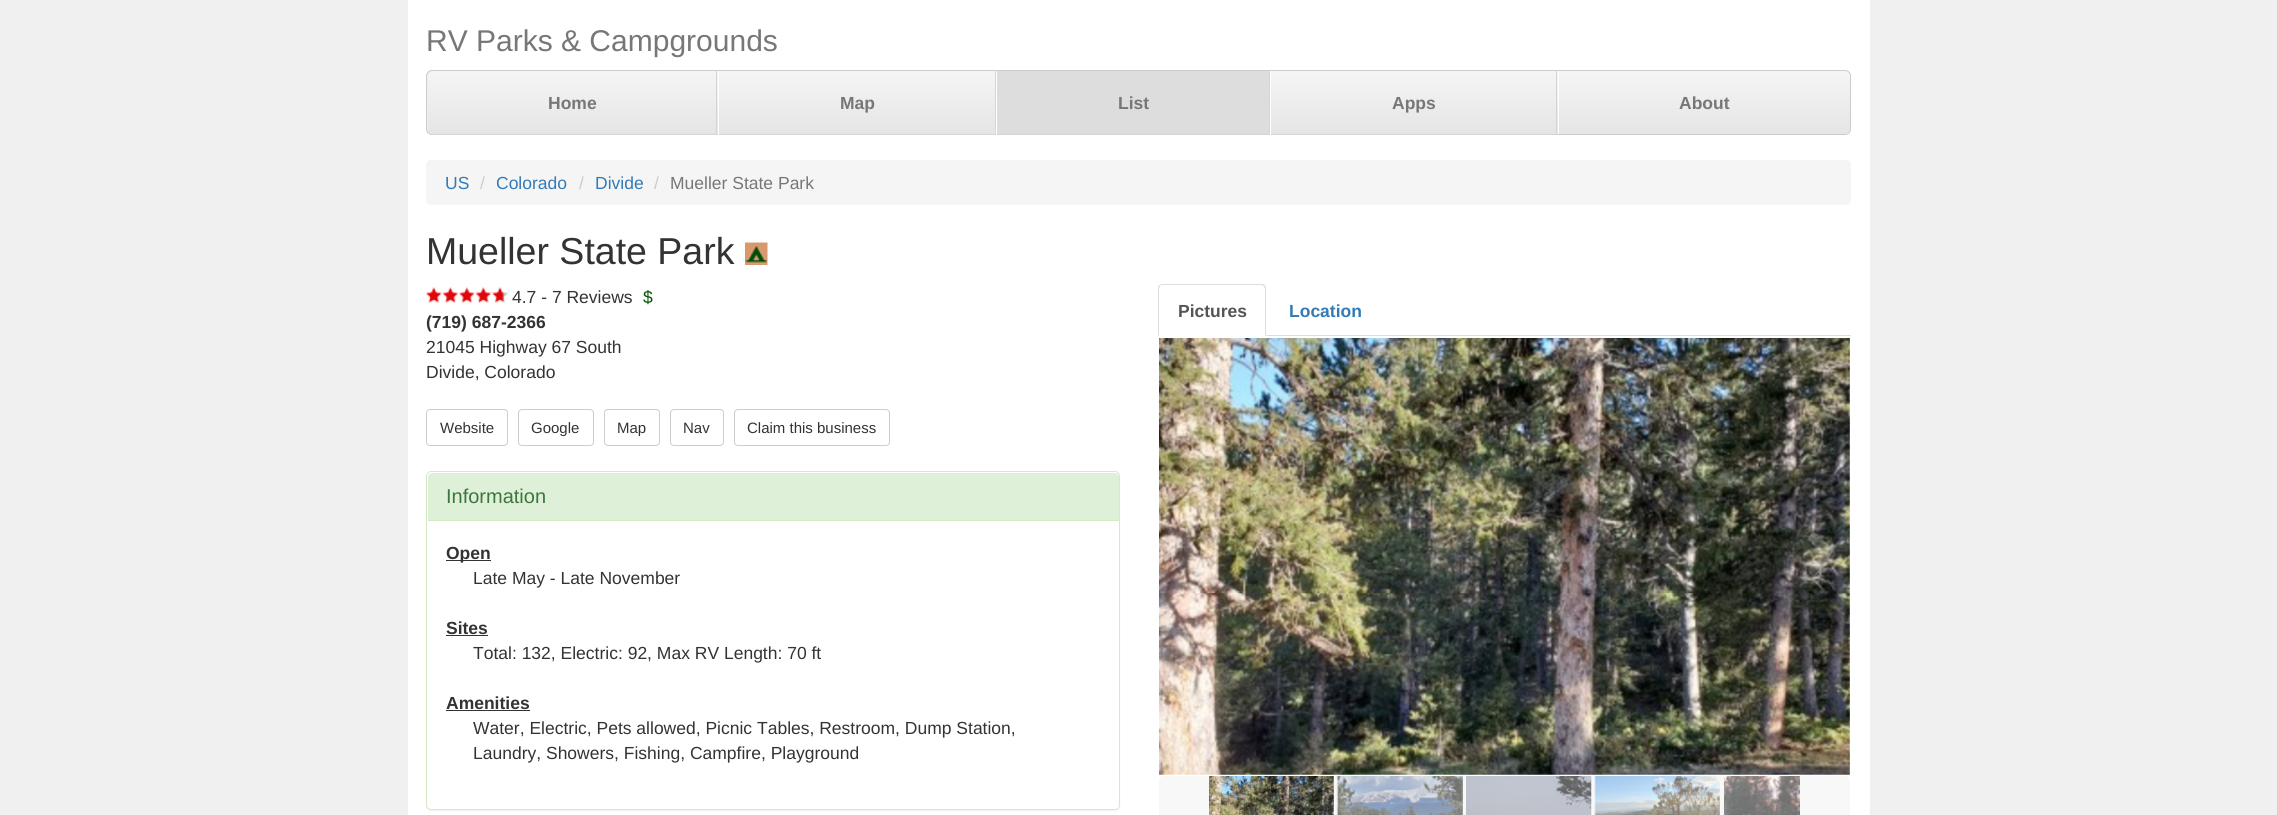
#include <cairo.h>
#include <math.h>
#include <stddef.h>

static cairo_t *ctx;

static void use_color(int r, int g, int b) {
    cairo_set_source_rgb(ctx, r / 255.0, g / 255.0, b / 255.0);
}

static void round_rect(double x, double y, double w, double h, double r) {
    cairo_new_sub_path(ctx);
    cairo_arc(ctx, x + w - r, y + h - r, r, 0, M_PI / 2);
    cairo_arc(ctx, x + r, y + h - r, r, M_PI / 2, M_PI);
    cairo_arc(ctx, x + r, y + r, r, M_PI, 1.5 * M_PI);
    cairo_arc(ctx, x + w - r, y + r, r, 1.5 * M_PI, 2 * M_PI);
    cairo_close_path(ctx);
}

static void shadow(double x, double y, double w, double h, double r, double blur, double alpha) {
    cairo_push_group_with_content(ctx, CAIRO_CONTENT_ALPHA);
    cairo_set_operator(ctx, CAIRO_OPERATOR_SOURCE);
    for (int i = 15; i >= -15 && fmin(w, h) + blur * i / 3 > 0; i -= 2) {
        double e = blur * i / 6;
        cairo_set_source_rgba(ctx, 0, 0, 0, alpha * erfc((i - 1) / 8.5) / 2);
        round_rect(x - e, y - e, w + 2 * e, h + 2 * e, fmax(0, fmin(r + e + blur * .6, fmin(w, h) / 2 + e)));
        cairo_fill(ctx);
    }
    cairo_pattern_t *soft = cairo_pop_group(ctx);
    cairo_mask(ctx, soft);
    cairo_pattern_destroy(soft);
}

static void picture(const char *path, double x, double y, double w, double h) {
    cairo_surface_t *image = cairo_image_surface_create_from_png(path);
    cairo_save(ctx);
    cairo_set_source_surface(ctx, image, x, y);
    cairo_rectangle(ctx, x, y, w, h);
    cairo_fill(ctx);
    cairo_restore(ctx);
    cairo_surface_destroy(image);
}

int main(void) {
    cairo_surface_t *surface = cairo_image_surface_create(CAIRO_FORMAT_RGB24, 2277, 815);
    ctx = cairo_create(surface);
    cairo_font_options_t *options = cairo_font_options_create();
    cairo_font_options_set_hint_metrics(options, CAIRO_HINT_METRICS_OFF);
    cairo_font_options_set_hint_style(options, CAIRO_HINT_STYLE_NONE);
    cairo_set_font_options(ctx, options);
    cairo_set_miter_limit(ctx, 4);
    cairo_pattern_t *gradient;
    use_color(240, 240, 240);
    cairo_paint(ctx);
    use_color(255, 255, 255);
    cairo_rectangle(ctx, 408, 0, 1462, 815);
    cairo_fill(ctx);
    cairo_select_font_face(ctx, "Liberation Sans", CAIRO_FONT_SLANT_NORMAL, CAIRO_FONT_WEIGHT_NORMAL);
    cairo_set_font_size(ctx, 30);
    use_color(119, 119, 119);
    cairo_move_to(ctx, 426, 51);
    cairo_show_text(ctx, "RV Parks & Campgrounds");
    use_color(238, 238, 238);
    round_rect(426.5, 70.5, 1424, 64, 5.5);
    cairo_fill_preserve(ctx);
    use_color(204, 204, 204);
    cairo_set_line_width(ctx, 1);
    cairo_stroke(ctx);
    use_color(229, 229, 229);
    cairo_new_path(ctx);
    cairo_move_to(ctx, 434, 71);
    cairo_line_to(ctx, 718, 71);
    cairo_line_to(ctx, 718, 135);
    cairo_line_to(ctx, 434, 135);
    cairo_curve_to(ctx, 430.5, 135, 428, 132.5, 428, 129);
    cairo_line_to(ctx, 428, 77);
    cairo_curve_to(ctx, 428, 73.5, 430.5, 71, 434, 71);
    cairo_close_path(ctx);
    cairo_fill(ctx);
    cairo_save(ctx);
    cairo_new_path(ctx);
    cairo_move_to(ctx, 434, 71);
    cairo_line_to(ctx, 718, 71);
    cairo_line_to(ctx, 718, 135);
    cairo_line_to(ctx, 434, 135);
    cairo_curve_to(ctx, 430.5, 135, 428, 132.5, 428, 129);
    cairo_line_to(ctx, 428, 77);
    cairo_curve_to(ctx, 428, 73.5, 430.5, 71, 434, 71);
    cairo_close_path(ctx);
    cairo_clip(ctx);
    gradient = cairo_pattern_create_linear(572, 71, 572, 134);
    cairo_pattern_add_color_stop_rgba(gradient, 0, 0.961, 0.961, 0.961, 1);
    cairo_pattern_add_color_stop_rgba(gradient, 1, 0.898, 0.898, 0.898, 1);
    cairo_set_source(ctx, gradient);
    cairo_pattern_destroy(gradient);
    cairo_new_path(ctx);
    cairo_move_to(ctx, 434, 71);
    cairo_line_to(ctx, 718, 71);
    cairo_line_to(ctx, 718, 134);
    cairo_line_to(ctx, 428, 134);
    cairo_line_to(ctx, 428, 77);
    cairo_curve_to(ctx, 428, 73.5, 430.5, 71, 434, 71);
    cairo_close_path(ctx);
    cairo_fill(ctx);
    cairo_restore(ctx);
    use_color(213, 213, 213);
    cairo_rectangle(ctx, 716, 71, 1, 64);
    cairo_fill(ctx);
    cairo_rectangle(ctx, 431, 134, 287, 1);
    cairo_fill(ctx);
    cairo_select_font_face(ctx, "Liberation Sans", CAIRO_FONT_SLANT_NORMAL, CAIRO_FONT_WEIGHT_BOLD);
    cairo_set_font_size(ctx, 17.5);
    use_color(119, 119, 119);
    cairo_move_to(ctx, 548, 109);
    cairo_show_text(ctx, "Home");
    gradient = cairo_pattern_create_linear(857, 71, 857, 134);
    cairo_pattern_add_color_stop_rgba(gradient, 0, 0.961, 0.961, 0.961, 1);
    cairo_pattern_add_color_stop_rgba(gradient, 1, 0.898, 0.898, 0.898, 1);
    cairo_set_source(ctx, gradient);
    cairo_pattern_destroy(gradient);
    cairo_rectangle(ctx, 719, 71, 276, 63);
    cairo_fill(ctx);
    use_color(213, 213, 213);
    cairo_rectangle(ctx, 995, 71, 1, 64);
    cairo_fill(ctx);
    cairo_rectangle(ctx, 718, 134, 278, 1);
    cairo_fill(ctx);
    use_color(255, 255, 255);
    cairo_rectangle(ctx, 718, 71, 1, 64);
    cairo_fill(ctx);
    use_color(119, 119, 119);
    cairo_move_to(ctx, 840, 109);
    cairo_show_text(ctx, "Map");
    use_color(221, 221, 221);
    cairo_rectangle(ctx, 997, 71, 272, 63);
    cairo_fill(ctx);
    use_color(213, 213, 213);
    cairo_rectangle(ctx, 1269, 71, 1, 64);
    cairo_fill(ctx);
    cairo_rectangle(ctx, 996, 134, 274, 1);
    cairo_fill(ctx);
    use_color(255, 255, 255);
    cairo_rectangle(ctx, 996, 71, 1, 64);
    cairo_fill(ctx);
    use_color(119, 119, 119);
    cairo_move_to(ctx, 1118, 109);
    cairo_show_text(ctx, "List");
    gradient = cairo_pattern_create_linear(1414, 71, 1414, 134);
    cairo_pattern_add_color_stop_rgba(gradient, 0, 0.961, 0.961, 0.961, 1);
    cairo_pattern_add_color_stop_rgba(gradient, 1, 0.898, 0.898, 0.898, 1);
    cairo_set_source(ctx, gradient);
    cairo_pattern_destroy(gradient);
    cairo_rectangle(ctx, 1271, 71, 287, 63);
    cairo_fill(ctx);
    use_color(213, 213, 213);
    cairo_rectangle(ctx, 1556, 71, 1, 64);
    cairo_fill(ctx);
    cairo_rectangle(ctx, 1270, 134, 288, 1);
    cairo_fill(ctx);
    use_color(255, 255, 255);
    cairo_rectangle(ctx, 1270, 71, 1, 64);
    cairo_fill(ctx);
    use_color(119, 119, 119);
    cairo_move_to(ctx, 1392, 109);
    cairo_show_text(ctx, "Apps");
    gradient = cairo_pattern_create_linear(1704, 71, 1704, 134);
    cairo_pattern_add_color_stop_rgba(gradient, 0, 0.961, 0.961, 0.961, 1);
    cairo_pattern_add_color_stop_rgba(gradient, 1, 0.898, 0.898, 0.898, 1);
    cairo_set_source(ctx, gradient);
    cairo_pattern_destroy(gradient);
    cairo_new_path(ctx);
    cairo_move_to(ctx, 1558, 71);
    cairo_line_to(ctx, 1844, 71);
    cairo_curve_to(ctx, 1847.5, 71, 1850, 73.5, 1850, 77);
    cairo_line_to(ctx, 1850, 128);
    cairo_curve_to(ctx, 1850, 131.5, 1847.5, 134, 1844, 134);
    cairo_line_to(ctx, 1558, 134);
    cairo_close_path(ctx);
    cairo_fill(ctx);
    use_color(255, 255, 255);
    cairo_rectangle(ctx, 1558, 71, 1, 63);
    cairo_fill(ctx);
    use_color(119, 119, 119);
    cairo_move_to(ctx, 1679, 109);
    cairo_show_text(ctx, "About");
    use_color(245, 245, 245);
    round_rect(426, 160, 1425, 45, 5);
    cairo_fill(ctx);
    cairo_select_font_face(ctx, "Liberation Sans", CAIRO_FONT_SLANT_NORMAL, CAIRO_FONT_WEIGHT_NORMAL);
    use_color(51, 122, 183);
    cairo_move_to(ctx, 445, 189);
    cairo_show_text(ctx, "US");
    use_color(204, 204, 204);
    cairo_move_to(ctx, 480, 189);
    cairo_show_text(ctx, "/");
    use_color(51, 122, 183);
    cairo_move_to(ctx, 496, 189);
    cairo_show_text(ctx, "Colorado");
    use_color(204, 204, 204);
    cairo_move_to(ctx, 579, 189);
    cairo_show_text(ctx, "/");
    use_color(51, 122, 183);
    cairo_move_to(ctx, 595, 189);
    cairo_show_text(ctx, "Divide");
    use_color(204, 204, 204);
    cairo_move_to(ctx, 654, 189);
    cairo_show_text(ctx, "/");
    use_color(119, 119, 119);
    cairo_move_to(ctx, 670, 189);
    cairo_show_text(ctx, "Mueller State Park");
    cairo_set_font_size(ctx, 37.5);
    use_color(51, 51, 51);
    cairo_move_to(ctx, 426, 264);
    cairo_show_text(ctx, "Mueller State Park");
    picture("img1.png", 745, 242, 23, 23);
    picture("img2.png", 426, 287, 82, 16);
    cairo_set_font_size(ctx, 17.5);
    cairo_move_to(ctx, 512, 303);
    cairo_show_text(ctx, "4.7 - 7 Reviews");
    use_color(0, 85, 0);
    cairo_move_to(ctx, 643, 303);
    cairo_show_text(ctx, "$");
    cairo_select_font_face(ctx, "Liberation Sans", CAIRO_FONT_SLANT_NORMAL, CAIRO_FONT_WEIGHT_BOLD);
    use_color(51, 51, 51);
    cairo_move_to(ctx, 426, 328);
    cairo_show_text(ctx, "(719) 687-2366");
    cairo_select_font_face(ctx, "Liberation Sans", CAIRO_FONT_SLANT_NORMAL, CAIRO_FONT_WEIGHT_NORMAL);
    cairo_move_to(ctx, 426, 353);
    cairo_show_text(ctx, "21045 Highway 67 South");
    cairo_move_to(ctx, 426, 378);
    cairo_show_text(ctx, "Divide, Colorado");
    round_rect(426.5, 409.5, 81, 36, 3.5);
    use_color(204, 204, 204);
    cairo_stroke(ctx);
    cairo_set_font_size(ctx, 15);
    use_color(51, 51, 51);
    cairo_move_to(ctx, 440, 433);
    cairo_show_text(ctx, "Website");
    round_rect(518.5, 409.5, 75, 36, 3.5);
    use_color(204, 204, 204);
    cairo_stroke(ctx);
    use_color(51, 51, 51);
    cairo_move_to(ctx, 531, 433);
    cairo_show_text(ctx, "Google");
    round_rect(604.5, 409.5, 55, 36, 3.5);
    use_color(204, 204, 204);
    cairo_stroke(ctx);
    use_color(51, 51, 51);
    cairo_move_to(ctx, 617, 433);
    cairo_show_text(ctx, "Map");
    round_rect(670.5, 409.5, 53, 36, 3.5);
    use_color(204, 204, 204);
    cairo_stroke(ctx);
    use_color(51, 51, 51);
    cairo_move_to(ctx, 683, 433);
    cairo_show_text(ctx, "Nav");
    round_rect(734.5, 409.5, 155, 36, 3.5);
    use_color(204, 204, 204);
    cairo_stroke(ctx);
    use_color(51, 51, 51);
    cairo_move_to(ctx, 747, 433);
    cairo_show_text(ctx, "Claim this business");
    use_color(0, 0, 0);
    shadow(426, 473, 694, 338, 5, 0.5, 0.05);
    use_color(255, 255, 255);
    round_rect(426.5, 471.5, 693, 338, 4.5);
    cairo_fill_preserve(ctx);
    use_color(214, 233, 198);
    cairo_stroke(ctx);
    use_color(223, 240, 216);
    cairo_new_path(ctx);
    cairo_move_to(ctx, 432, 473);
    cairo_line_to(ctx, 1115, 473);
    cairo_curve_to(ctx, 1117, 473, 1119, 475, 1119, 477);
    cairo_line_to(ctx, 1119, 521);
    cairo_line_to(ctx, 428, 521);
    cairo_line_to(ctx, 428, 477);
    cairo_curve_to(ctx, 428, 475, 430, 473, 432, 473);
    cairo_close_path(ctx);
    cairo_fill(ctx);
    use_color(214, 233, 198);
    cairo_rectangle(ctx, 428, 520, 691, 1);
    cairo_fill(ctx);
    cairo_set_font_size(ctx, 20);
    use_color(60, 118, 61);
    cairo_move_to(ctx, 446, 503);
    cairo_show_text(ctx, "Information");
    use_color(51, 51, 51);
    cairo_rectangle(ctx, 446, 560, 45, 1);
    cairo_fill(ctx);
    cairo_select_font_face(ctx, "Liberation Sans", CAIRO_FONT_SLANT_NORMAL, CAIRO_FONT_WEIGHT_BOLD);
    cairo_set_font_size(ctx, 17.5);
    cairo_move_to(ctx, 446, 559);
    cairo_show_text(ctx, "Open");
    cairo_select_font_face(ctx, "Liberation Sans", CAIRO_FONT_SLANT_NORMAL, CAIRO_FONT_WEIGHT_NORMAL);
    cairo_move_to(ctx, 473, 584);
    cairo_show_text(ctx, "Late May - Late November");
    cairo_select_font_face(ctx, "Liberation Sans", CAIRO_FONT_SLANT_NORMAL, CAIRO_FONT_WEIGHT_BOLD);
    cairo_move_to(ctx, 446, 634);
    cairo_show_text(ctx, "Sites");
    cairo_rectangle(ctx, 446, 635, 42, 1);
    cairo_fill(ctx);
    cairo_select_font_face(ctx, "Liberation Sans", CAIRO_FONT_SLANT_NORMAL, CAIRO_FONT_WEIGHT_NORMAL);
    cairo_move_to(ctx, 473, 659);
    cairo_show_text(ctx, "Total: 132, Electric: 92, Max RV Length: 70 ft");
    cairo_select_font_face(ctx, "Liberation Sans", CAIRO_FONT_SLANT_NORMAL, CAIRO_FONT_WEIGHT_BOLD);
    cairo_move_to(ctx, 446, 709);
    cairo_show_text(ctx, "Amenities");
    cairo_rectangle(ctx, 446, 710, 84, 1);
    cairo_fill(ctx);
    cairo_select_font_face(ctx, "Liberation Sans", CAIRO_FONT_SLANT_NORMAL, CAIRO_FONT_WEIGHT_NORMAL);
    cairo_move_to(ctx, 473, 734);
    cairo_show_text(ctx, "Water, Electric, Pets allowed, Picnic Tables, Restroom, Dump Station,");
    cairo_move_to(ctx, 473, 759);
    cairo_show_text(ctx, "Laundry, Showers, Fishing, Campfire, Playground");
    use_color(221, 221, 221);
    cairo_rectangle(ctx, 1266, 335, 585, 1);
    cairo_fill(ctx);
    cairo_new_path(ctx);
    cairo_move_to(ctx, 1162, 284);
    cairo_curve_to(ctx, 1161, 284, 1160, 285, 1159, 285);
    cairo_line_to(ctx, 1160, 286);
    cairo_line_to(ctx, 1161, 285);
    cairo_line_to(ctx, 1261, 285);
    cairo_line_to(ctx, 1264, 286);
    cairo_line_to(ctx, 1265, 285);
    cairo_curve_to(ctx, 1264, 284, 1262, 284, 1261, 284);
    cairo_close_path(ctx);
    cairo_fill(ctx);
    cairo_new_path(ctx);
    cairo_move_to(ctx, 1266, 336);
    cairo_line_to(ctx, 1266, 289);
    cairo_curve_to(ctx, 1266, 288, 1266, 286, 1265, 285);
    cairo_line_to(ctx, 1264, 286);
    cairo_curve_to(ctx, 1264, 287, 1265, 288, 1265, 289);
    cairo_line_to(ctx, 1265, 335);
    cairo_close_path(ctx);
    cairo_fill(ctx);
    cairo_new_path(ctx);
    cairo_move_to(ctx, 1159, 285);
    cairo_curve_to(ctx, 1158, 286, 1158, 288, 1158, 289);
    cairo_line_to(ctx, 1158, 336);
    cairo_line_to(ctx, 1159, 335);
    cairo_line_to(ctx, 1159, 289);
    cairo_line_to(ctx, 1160, 286);
    cairo_close_path(ctx);
    cairo_fill(ctx);
    cairo_select_font_face(ctx, "Liberation Sans", CAIRO_FONT_SLANT_NORMAL, CAIRO_FONT_WEIGHT_BOLD);
    use_color(85, 85, 85);
    cairo_move_to(ctx, 1178, 317);
    cairo_show_text(ctx, "Pictures");
    use_color(51, 122, 183);
    cairo_move_to(ctx, 1289, 317);
    cairo_show_text(ctx, "Location");
    picture("img3.png", 1159, 338, 691, 437);
    picture("img4.png", 1808, 532, 28, 44);
    use_color(248, 248, 248);
    round_rect(1159, 776, 691, 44, 5);
    cairo_fill(ctx);
    picture("img5.png", 1209, 776, 125, 39);
    picture("img6.png", 1336, 776, 127, 39);
    picture("img7.png", 1466, 776, 126, 39);
    picture("img8.png", 1594, 776, 126, 39);
    picture("img9.png", 1724, 776, 76, 39);
    cairo_surface_write_to_png(surface, "result.png");
    cairo_font_options_destroy(options);
    cairo_destroy(ctx);
    cairo_surface_destroy(surface);
    return 0;
}
